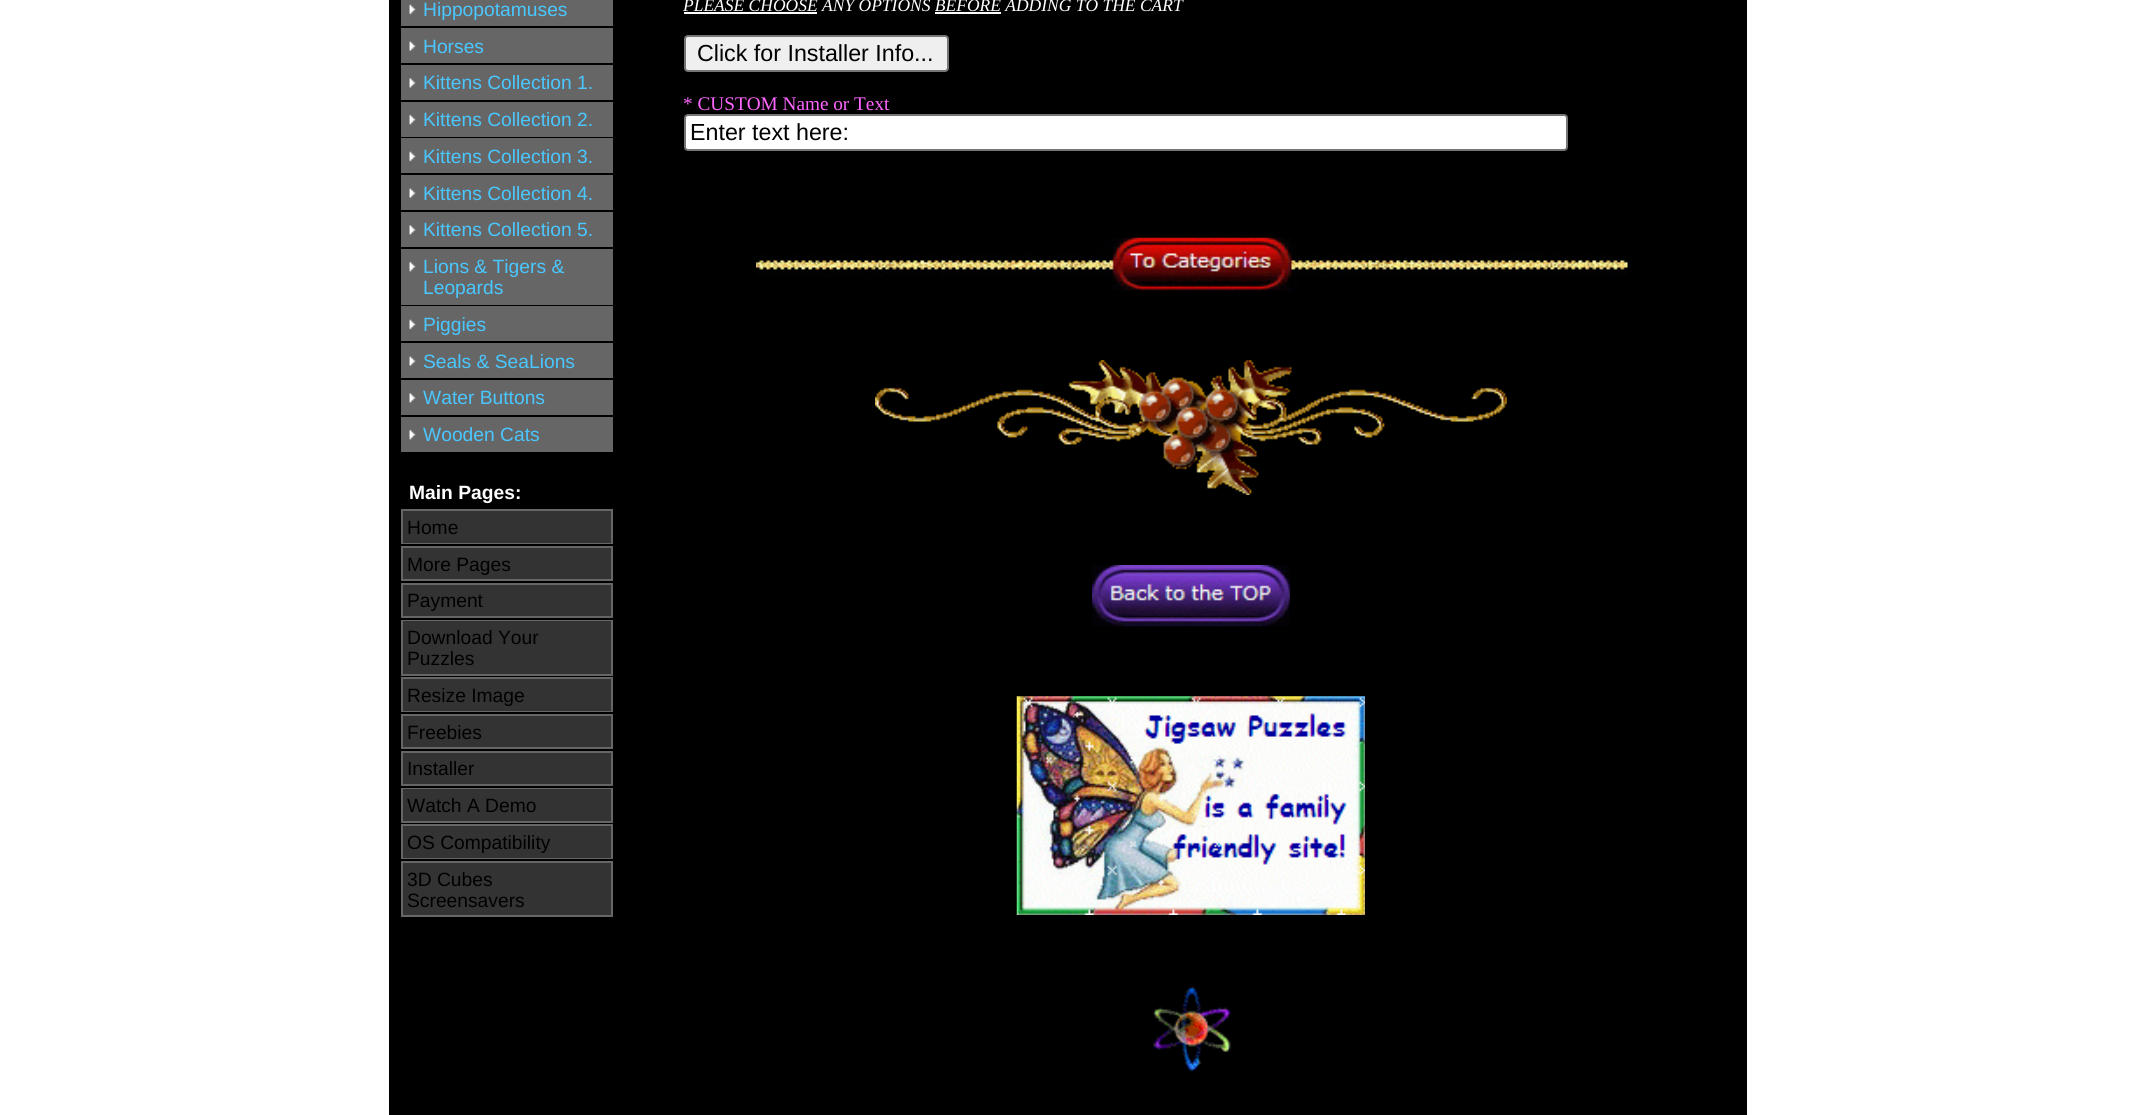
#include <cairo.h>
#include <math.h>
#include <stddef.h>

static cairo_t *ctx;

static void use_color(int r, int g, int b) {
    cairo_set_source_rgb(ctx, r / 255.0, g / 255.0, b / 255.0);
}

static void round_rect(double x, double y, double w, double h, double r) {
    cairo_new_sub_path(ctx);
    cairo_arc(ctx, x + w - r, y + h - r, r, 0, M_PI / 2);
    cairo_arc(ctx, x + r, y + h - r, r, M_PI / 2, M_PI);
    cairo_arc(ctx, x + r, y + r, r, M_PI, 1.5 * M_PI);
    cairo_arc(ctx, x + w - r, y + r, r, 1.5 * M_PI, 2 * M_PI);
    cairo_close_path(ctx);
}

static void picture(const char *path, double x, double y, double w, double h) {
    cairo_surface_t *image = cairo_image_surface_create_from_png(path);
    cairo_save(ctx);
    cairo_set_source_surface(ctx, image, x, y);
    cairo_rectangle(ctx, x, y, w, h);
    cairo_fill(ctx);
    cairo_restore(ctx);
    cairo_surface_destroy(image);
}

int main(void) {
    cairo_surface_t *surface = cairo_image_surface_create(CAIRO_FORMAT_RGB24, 2132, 1115);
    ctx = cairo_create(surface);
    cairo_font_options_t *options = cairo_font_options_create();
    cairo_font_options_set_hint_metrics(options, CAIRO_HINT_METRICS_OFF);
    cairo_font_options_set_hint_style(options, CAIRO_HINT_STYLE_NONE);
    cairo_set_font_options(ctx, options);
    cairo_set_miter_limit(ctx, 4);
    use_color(255, 255, 255);
    cairo_paint(ctx);
    use_color(0, 0, 0);
    cairo_rectangle(ctx, 389, 0, 1358, 1115);
    cairo_fill(ctx);
    cairo_rectangle(ctx, 402, -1, 210, 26);
    use_color(102, 102, 102);
    cairo_stroke(ctx);
    cairo_rectangle(ctx, 403, 0, 208, 24);
    cairo_fill(ctx);
    picture("img1.png", 409, 4, 7, 11);
    cairo_select_font_face(ctx, "Liberation Sans", CAIRO_FONT_SLANT_NORMAL, CAIRO_FONT_WEIGHT_NORMAL);
    cairo_set_font_size(ctx, 19.25);
    use_color(74, 199, 255);
    cairo_move_to(ctx, 423, 16);
    cairo_show_text(ctx, "Hippopotamuses");
    cairo_rectangle(ctx, 402, 29, 210, 33);
    use_color(102, 102, 102);
    cairo_stroke(ctx);
    cairo_rectangle(ctx, 403, 30, 208, 31);
    cairo_fill(ctx);
    picture("img2.png", 409, 41, 7, 10);
    use_color(74, 199, 255);
    cairo_move_to(ctx, 423, 53);
    cairo_show_text(ctx, "Horses");
    cairo_rectangle(ctx, 402, 66, 210, 33);
    use_color(102, 102, 102);
    cairo_stroke(ctx);
    cairo_rectangle(ctx, 403, 67, 208, 31);
    cairo_fill(ctx);
    picture("img3.png", 409, 78, 7, 10);
    use_color(74, 199, 255);
    cairo_move_to(ctx, 423, 89);
    cairo_show_text(ctx, "Kittens Collection 1.");
    cairo_rectangle(ctx, 402, 103, 210, 33);
    use_color(102, 102, 102);
    cairo_stroke(ctx);
    cairo_rectangle(ctx, 403, 104, 208, 31);
    cairo_fill(ctx);
    picture("img4.png", 409, 114, 7, 11);
    use_color(74, 199, 255);
    cairo_move_to(ctx, 423, 126);
    cairo_show_text(ctx, "Kittens Collection 2.");
    cairo_rectangle(ctx, 402, 139, 210, 33);
    use_color(102, 102, 102);
    cairo_stroke(ctx);
    cairo_rectangle(ctx, 403, 140, 208, 31);
    cairo_fill(ctx);
    picture("img1.png", 409, 151, 7, 11);
    use_color(74, 199, 255);
    cairo_move_to(ctx, 423, 163);
    cairo_show_text(ctx, "Kittens Collection 3.");
    cairo_rectangle(ctx, 402, 176, 210, 33);
    use_color(102, 102, 102);
    cairo_stroke(ctx);
    cairo_rectangle(ctx, 403, 177, 208, 31);
    cairo_fill(ctx);
    picture("img2.png", 409, 188, 7, 10);
    use_color(74, 199, 255);
    cairo_move_to(ctx, 423, 200);
    cairo_show_text(ctx, "Kittens Collection 4.");
    cairo_rectangle(ctx, 402, 213, 210, 33);
    use_color(102, 102, 102);
    cairo_stroke(ctx);
    cairo_rectangle(ctx, 403, 214, 208, 31);
    cairo_fill(ctx);
    picture("img3.png", 409, 225, 7, 10);
    use_color(74, 199, 255);
    cairo_move_to(ctx, 423, 236);
    cairo_show_text(ctx, "Kittens Collection 5.");
    cairo_rectangle(ctx, 402, 250, 210, 54);
    use_color(102, 102, 102);
    cairo_stroke(ctx);
    cairo_rectangle(ctx, 403, 251, 208, 52);
    cairo_fill(ctx);
    picture("img4.png", 409, 261, 7, 11);
    use_color(74, 199, 255);
    cairo_move_to(ctx, 423, 273);
    cairo_show_text(ctx, "Lions & Tigers &");
    cairo_move_to(ctx, 423, 294);
    cairo_show_text(ctx, "Leopards");
    cairo_rectangle(ctx, 402, 307, 210, 33);
    use_color(102, 102, 102);
    cairo_stroke(ctx);
    cairo_rectangle(ctx, 403, 308, 208, 31);
    cairo_fill(ctx);
    picture("img1.png", 409, 319, 7, 11);
    use_color(74, 199, 255);
    cairo_move_to(ctx, 423, 331);
    cairo_show_text(ctx, "Piggies");
    cairo_rectangle(ctx, 402, 344, 210, 33);
    use_color(102, 102, 102);
    cairo_stroke(ctx);
    cairo_rectangle(ctx, 403, 345, 208, 31);
    cairo_fill(ctx);
    picture("img2.png", 409, 356, 7, 10);
    use_color(74, 199, 255);
    cairo_move_to(ctx, 423, 368);
    cairo_show_text(ctx, "Seals & SeaLions");
    cairo_rectangle(ctx, 402, 381, 210, 33);
    use_color(102, 102, 102);
    cairo_stroke(ctx);
    cairo_rectangle(ctx, 403, 382, 208, 31);
    cairo_fill(ctx);
    picture("img3.png", 409, 393, 7, 10);
    use_color(74, 199, 255);
    cairo_move_to(ctx, 423, 404);
    cairo_show_text(ctx, "Water Buttons");
    cairo_rectangle(ctx, 402, 418, 210, 33);
    use_color(102, 102, 102);
    cairo_stroke(ctx);
    cairo_rectangle(ctx, 403, 419, 208, 31);
    cairo_fill(ctx);
    picture("img4.png", 409, 429, 7, 11);
    use_color(74, 199, 255);
    cairo_move_to(ctx, 423, 441);
    cairo_show_text(ctx, "Wooden Cats");
    cairo_select_font_face(ctx, "Liberation Sans", CAIRO_FONT_SLANT_NORMAL, CAIRO_FONT_WEIGHT_BOLD);
    use_color(255, 255, 255);
    cairo_move_to(ctx, 409, 499);
    cairo_show_text(ctx, "Main Pages:");
    cairo_rectangle(ctx, 402, 510, 210, 33);
    use_color(102, 102, 102);
    cairo_stroke(ctx);
    use_color(51, 51, 51);
    cairo_rectangle(ctx, 403, 511, 208, 32);
    cairo_fill(ctx);
    cairo_select_font_face(ctx, "Liberation Sans", CAIRO_FONT_SLANT_NORMAL, CAIRO_FONT_WEIGHT_NORMAL);
    use_color(0, 0, 0);
    cairo_move_to(ctx, 407, 534);
    cairo_show_text(ctx, "Home");
    cairo_rectangle(ctx, 402, 547, 210, 33);
    use_color(102, 102, 102);
    cairo_stroke(ctx);
    use_color(51, 51, 51);
    cairo_rectangle(ctx, 403, 548, 208, 31);
    cairo_fill(ctx);
    use_color(0, 0, 0);
    cairo_move_to(ctx, 407, 571);
    cairo_show_text(ctx, "More Pages");
    cairo_rectangle(ctx, 402, 584, 210, 33);
    use_color(102, 102, 102);
    cairo_stroke(ctx);
    use_color(51, 51, 51);
    cairo_rectangle(ctx, 403, 585, 208, 31);
    cairo_fill(ctx);
    use_color(0, 0, 0);
    cairo_move_to(ctx, 407, 607);
    cairo_show_text(ctx, "Payment");
    cairo_rectangle(ctx, 402, 621, 210, 54);
    use_color(102, 102, 102);
    cairo_stroke(ctx);
    use_color(51, 51, 51);
    cairo_rectangle(ctx, 403, 621, 208, 53);
    cairo_fill(ctx);
    use_color(0, 0, 0);
    cairo_move_to(ctx, 407, 644);
    cairo_show_text(ctx, "Download Your");
    cairo_move_to(ctx, 407, 665);
    cairo_show_text(ctx, "Puzzles");
    cairo_rectangle(ctx, 402, 678, 210, 33);
    use_color(102, 102, 102);
    cairo_stroke(ctx);
    use_color(51, 51, 51);
    cairo_rectangle(ctx, 403, 679, 208, 32);
    cairo_fill(ctx);
    use_color(0, 0, 0);
    cairo_move_to(ctx, 407, 702);
    cairo_show_text(ctx, "Resize Image");
    cairo_rectangle(ctx, 402, 715, 210, 33);
    use_color(102, 102, 102);
    cairo_stroke(ctx);
    use_color(51, 51, 51);
    cairo_rectangle(ctx, 403, 716, 208, 31);
    cairo_fill(ctx);
    use_color(0, 0, 0);
    cairo_move_to(ctx, 407, 739);
    cairo_show_text(ctx, "Freebies");
    cairo_rectangle(ctx, 402, 752, 210, 33);
    use_color(102, 102, 102);
    cairo_stroke(ctx);
    use_color(51, 51, 51);
    cairo_rectangle(ctx, 403, 753, 208, 31);
    cairo_fill(ctx);
    use_color(0, 0, 0);
    cairo_move_to(ctx, 407, 775);
    cairo_show_text(ctx, "Installer");
    cairo_rectangle(ctx, 402, 789, 210, 33);
    use_color(102, 102, 102);
    cairo_stroke(ctx);
    use_color(51, 51, 51);
    cairo_rectangle(ctx, 403, 789, 208, 32);
    cairo_fill(ctx);
    use_color(0, 0, 0);
    cairo_move_to(ctx, 407, 812);
    cairo_show_text(ctx, "Watch A Demo");
    cairo_rectangle(ctx, 402, 825, 210, 33);
    use_color(102, 102, 102);
    cairo_stroke(ctx);
    use_color(51, 51, 51);
    cairo_rectangle(ctx, 403, 826, 208, 32);
    cairo_fill(ctx);
    use_color(0, 0, 0);
    cairo_move_to(ctx, 407, 849);
    cairo_show_text(ctx, "OS Compatibility");
    cairo_rectangle(ctx, 402, 862, 210, 54);
    use_color(102, 102, 102);
    cairo_stroke(ctx);
    use_color(51, 51, 51);
    cairo_rectangle(ctx, 403, 863, 208, 52);
    cairo_fill(ctx);
    use_color(0, 0, 0);
    cairo_move_to(ctx, 407, 886);
    cairo_show_text(ctx, "3D Cubes");
    cairo_move_to(ctx, 407, 907);
    cairo_show_text(ctx, "Screensavers");
    cairo_select_font_face(ctx, "Liberation Serif", CAIRO_FONT_SLANT_ITALIC, CAIRO_FONT_WEIGHT_NORMAL);
    cairo_set_font_size(ctx, 17.5);
    use_color(255, 255, 255);
    cairo_move_to(ctx, 683, 11);
    cairo_show_text(ctx, "PLEASE CHOOSE ANY OPTIONS BEFORE ADDING TO THE CART");
    cairo_rectangle(ctx, 684, 12, 133, 2);
    cairo_fill(ctx);
    cairo_rectangle(ctx, 935, 12, 66, 2);
    cairo_fill(ctx);
    use_color(239, 239, 239);
    round_rect(685, 36, 263, 35, 3);
    cairo_fill_preserve(ctx);
    use_color(118, 118, 118);
    cairo_stroke(ctx);
    cairo_select_font_face(ctx, "Liberation Sans", CAIRO_FONT_SLANT_NORMAL, CAIRO_FONT_WEIGHT_NORMAL);
    cairo_set_font_size(ctx, 23.25);
    use_color(0, 0, 0);
    cairo_move_to(ctx, 697, 61);
    cairo_show_text(ctx, "Click for Installer Info...");
    cairo_select_font_face(ctx, "Liberation Serif", CAIRO_FONT_SLANT_NORMAL, CAIRO_FONT_WEIGHT_NORMAL);
    cairo_set_font_size(ctx, 19.25);
    use_color(255, 102, 255);
    cairo_move_to(ctx, 683, 110);
    cairo_show_text(ctx, "* CUSTOM Name or Text");
    use_color(255, 255, 255);
    round_rect(685, 115, 882, 35, 3);
    cairo_fill_preserve(ctx);
    use_color(118, 118, 118);
    cairo_stroke(ctx);
    cairo_select_font_face(ctx, "Liberation Sans", CAIRO_FONT_SLANT_NORMAL, CAIRO_FONT_WEIGHT_NORMAL);
    cairo_set_font_size(ctx, 23.25);
    use_color(0, 0, 0);
    cairo_move_to(ctx, 690, 140);
    cairo_show_text(ctx, "Enter text here:");
    picture("img5.png", 756, 237, 872, 54);
    picture("img6.png", 875, 360, 632, 135);
    picture("img7.png", 1092, 565, 198, 62);
    picture("img8.png", 1016, 696, 349, 219);
    picture("img9.png", 1153, 986, 78, 86);
    cairo_surface_write_to_png(surface, "result.png");
    cairo_font_options_destroy(options);
    cairo_destroy(ctx);
    cairo_surface_destroy(surface);
    return 0;
}
